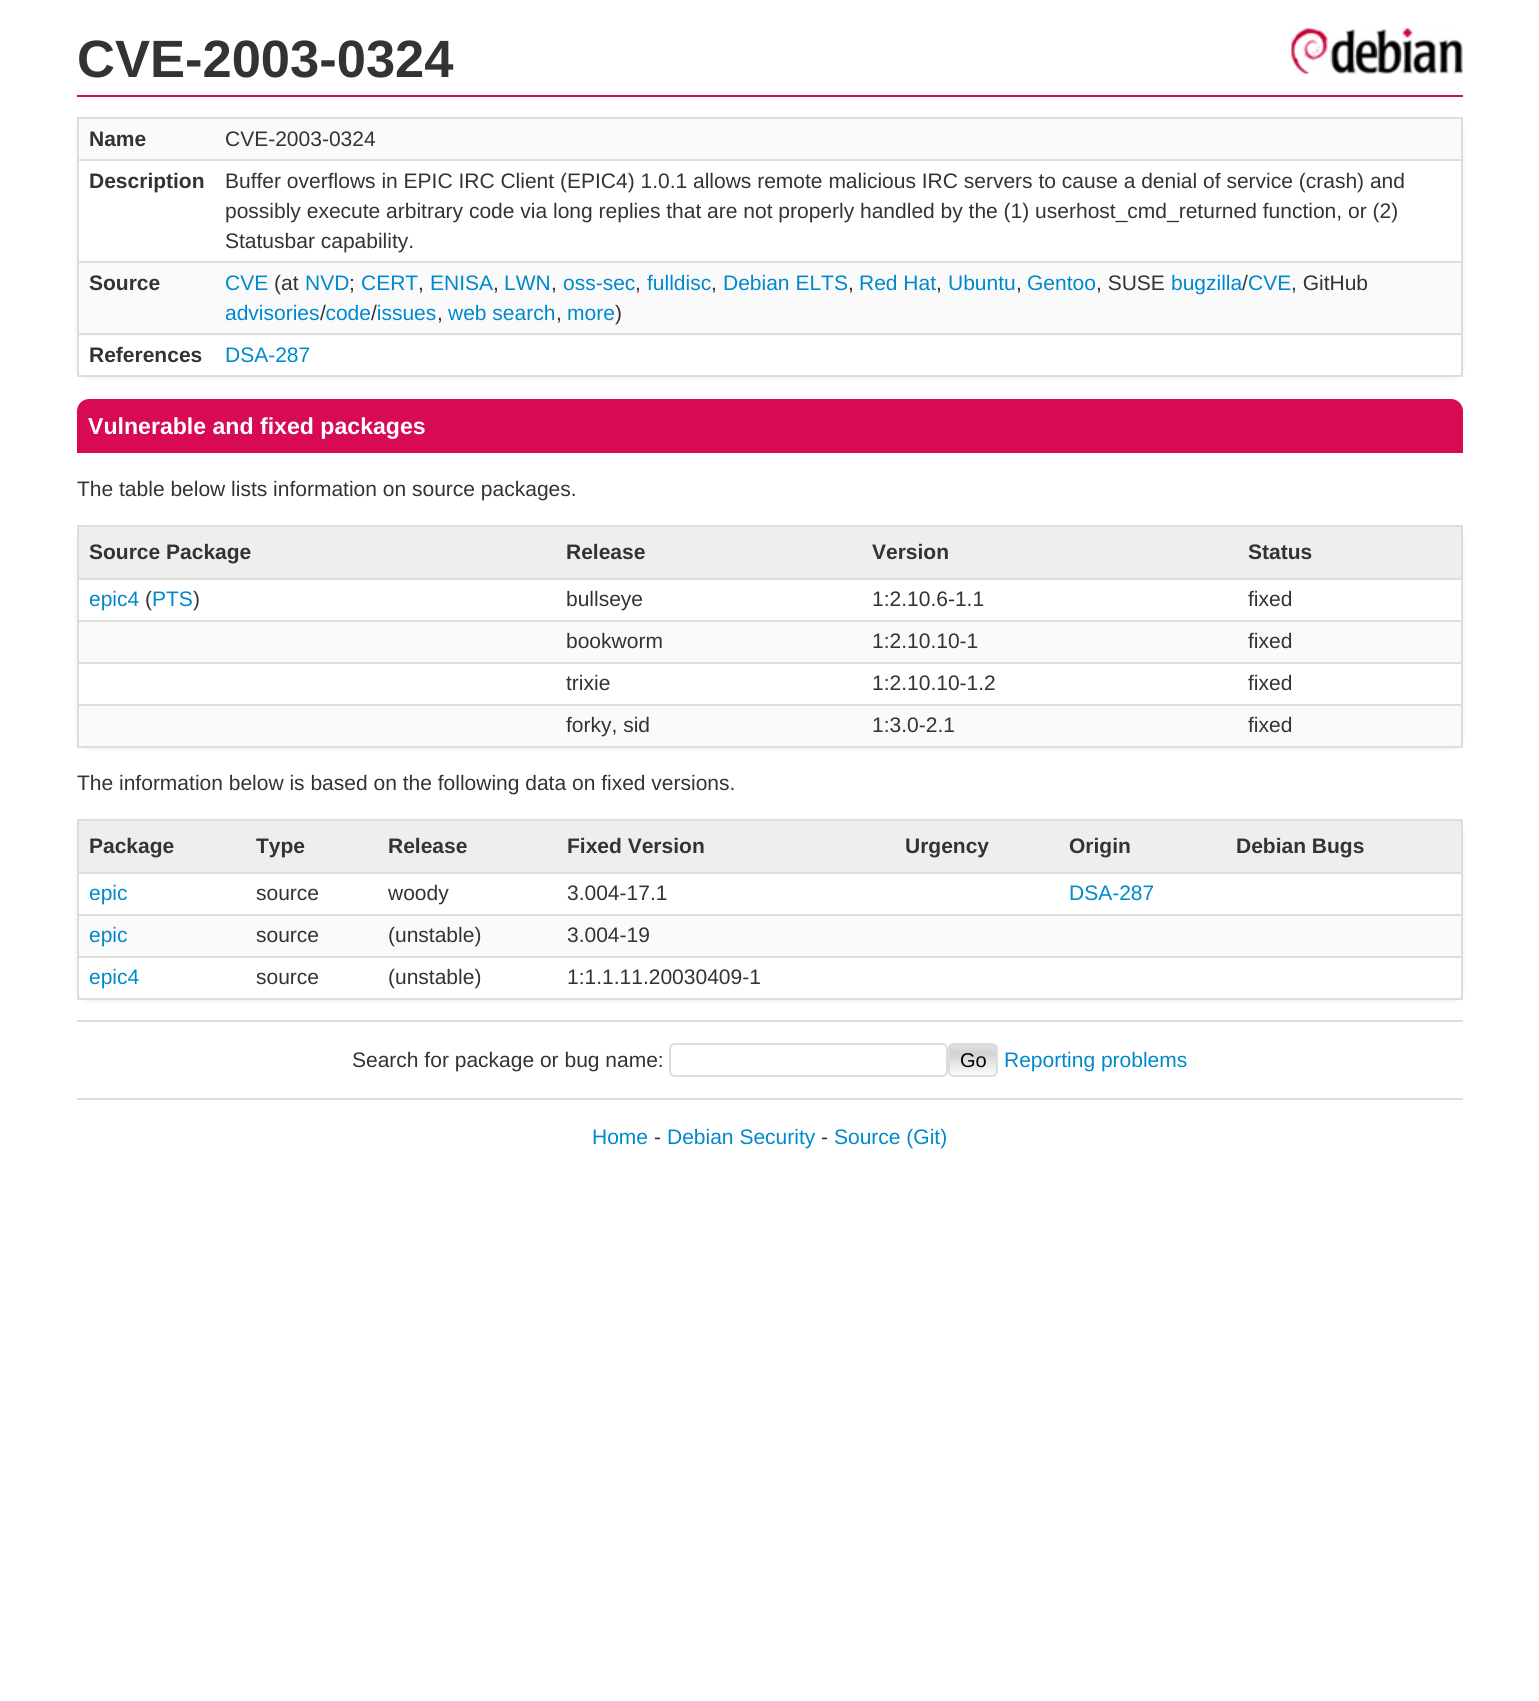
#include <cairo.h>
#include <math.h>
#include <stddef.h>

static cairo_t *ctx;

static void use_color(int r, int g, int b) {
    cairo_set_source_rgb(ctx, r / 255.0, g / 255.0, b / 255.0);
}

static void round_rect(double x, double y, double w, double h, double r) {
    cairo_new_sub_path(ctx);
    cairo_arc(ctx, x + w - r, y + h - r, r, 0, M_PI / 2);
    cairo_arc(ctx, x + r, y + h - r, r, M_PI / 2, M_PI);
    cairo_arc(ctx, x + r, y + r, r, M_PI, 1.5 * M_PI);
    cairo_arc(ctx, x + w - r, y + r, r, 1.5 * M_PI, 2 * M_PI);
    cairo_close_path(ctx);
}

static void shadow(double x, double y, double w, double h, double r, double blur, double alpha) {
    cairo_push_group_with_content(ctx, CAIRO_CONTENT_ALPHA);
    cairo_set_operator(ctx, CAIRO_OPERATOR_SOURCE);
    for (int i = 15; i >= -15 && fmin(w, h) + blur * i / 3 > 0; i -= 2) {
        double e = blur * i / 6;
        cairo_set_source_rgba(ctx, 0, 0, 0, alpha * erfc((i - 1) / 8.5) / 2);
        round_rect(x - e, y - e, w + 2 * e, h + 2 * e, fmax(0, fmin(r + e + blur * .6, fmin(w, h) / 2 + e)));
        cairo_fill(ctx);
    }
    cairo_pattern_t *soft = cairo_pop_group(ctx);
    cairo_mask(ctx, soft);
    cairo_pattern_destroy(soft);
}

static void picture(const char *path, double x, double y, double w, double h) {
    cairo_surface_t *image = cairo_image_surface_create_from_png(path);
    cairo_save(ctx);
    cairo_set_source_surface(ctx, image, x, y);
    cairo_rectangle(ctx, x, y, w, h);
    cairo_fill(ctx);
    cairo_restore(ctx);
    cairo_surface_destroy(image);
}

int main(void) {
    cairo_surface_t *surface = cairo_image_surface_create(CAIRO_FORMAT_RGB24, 1539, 1701);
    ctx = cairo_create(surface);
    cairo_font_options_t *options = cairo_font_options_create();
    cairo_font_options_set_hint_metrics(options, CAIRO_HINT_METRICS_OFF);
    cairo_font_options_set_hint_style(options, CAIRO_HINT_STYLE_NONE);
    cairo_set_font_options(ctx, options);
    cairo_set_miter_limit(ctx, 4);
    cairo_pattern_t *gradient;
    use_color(255, 255, 255);
    cairo_paint(ctx);
    picture("img1.png", 1291, 28, 172, 46);
    use_color(215, 10, 83);
    cairo_rectangle(ctx, 77, 95, 1386, 2);
    cairo_fill(ctx);
    cairo_select_font_face(ctx, "Liberation Sans", CAIRO_FONT_SLANT_NORMAL, CAIRO_FONT_WEIGHT_BOLD);
    cairo_set_font_size(ctx, 52.5);
    use_color(51, 51, 51);
    cairo_move_to(ctx, 77, 77);
    cairo_show_text(ctx, "CVE-2003-0324");
    cairo_save(ctx);
    cairo_set_fill_rule(ctx, CAIRO_FILL_RULE_EVEN_ODD);
    cairo_new_path(ctx);
    cairo_move_to(ctx, 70, 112);
    cairo_line_to(ctx, 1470, 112);
    cairo_line_to(ctx, 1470, 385);
    cairo_line_to(ctx, 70, 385);
    cairo_close_path(ctx);
    cairo_move_to(ctx, 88, 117);
    cairo_line_to(ctx, 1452, 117);
    cairo_curve_to(ctx, 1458, 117, 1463, 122, 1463, 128);
    cairo_line_to(ctx, 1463, 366);
    cairo_curve_to(ctx, 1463, 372, 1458, 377, 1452, 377);
    cairo_line_to(ctx, 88, 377);
    cairo_curve_to(ctx, 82, 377, 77, 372, 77, 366);
    cairo_line_to(ctx, 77, 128);
    cairo_curve_to(ctx, 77, 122, 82, 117, 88, 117);
    cairo_close_path(ctx);
    cairo_clip(ctx);
    use_color(238, 238, 238);
    shadow(77, 119, 1386, 259, 11, 2, 1);
    cairo_restore(ctx);
    use_color(221, 221, 221);
    cairo_rectangle(ctx, 77, 117, 1386, 2);
    cairo_fill(ctx);
    cairo_rectangle(ctx, 1461, 117, 2, 260);
    cairo_fill(ctx);
    cairo_rectangle(ctx, 77, 375, 1386, 2);
    cairo_fill(ctx);
    cairo_rectangle(ctx, 77, 117, 2, 260);
    cairo_fill(ctx);
    use_color(250, 250, 250);
    cairo_rectangle(ctx, 79, 119, 1382, 40);
    cairo_fill(ctx);
    cairo_set_font_size(ctx, 21);
    use_color(51, 51, 51);
    cairo_move_to(ctx, 89, 146);
    cairo_show_text(ctx, "Name");
    use_color(221, 221, 221);
    cairo_rectangle(ctx, 77, 159, 1386, 2);
    cairo_fill(ctx);
    cairo_select_font_face(ctx, "Liberation Sans", CAIRO_FONT_SLANT_NORMAL, CAIRO_FONT_WEIGHT_NORMAL);
    use_color(51, 51, 51);
    cairo_move_to(ctx, 225, 146);
    cairo_show_text(ctx, "CVE-2003-0324");
    cairo_select_font_face(ctx, "Liberation Sans", CAIRO_FONT_SLANT_NORMAL, CAIRO_FONT_WEIGHT_BOLD);
    cairo_move_to(ctx, 89, 188);
    cairo_show_text(ctx, "Description");
    use_color(221, 221, 221);
    cairo_rectangle(ctx, 77, 261, 1386, 2);
    cairo_fill(ctx);
    cairo_select_font_face(ctx, "Liberation Sans", CAIRO_FONT_SLANT_NORMAL, CAIRO_FONT_WEIGHT_NORMAL);
    use_color(51, 51, 51);
    cairo_move_to(ctx, 225, 188);
    cairo_show_text(ctx, "Buffer overflows in EPIC IRC Client (EPIC4) 1.0.1 allows remote malicious IRC servers to cause a denial of service (crash) and");
    cairo_move_to(ctx, 225, 218);
    cairo_show_text(ctx, "possibly execute arbitrary code via long replies that are not properly handled by the (1) userhost_cmd_returned function, or (2)");
    cairo_move_to(ctx, 225, 248);
    cairo_show_text(ctx, "Statusbar capability.");
    use_color(250, 250, 250);
    cairo_rectangle(ctx, 79, 263, 1382, 70);
    cairo_fill(ctx);
    cairo_select_font_face(ctx, "Liberation Sans", CAIRO_FONT_SLANT_NORMAL, CAIRO_FONT_WEIGHT_BOLD);
    use_color(51, 51, 51);
    cairo_move_to(ctx, 89, 290);
    cairo_show_text(ctx, "Source");
    use_color(221, 221, 221);
    cairo_rectangle(ctx, 77, 333, 1386, 2);
    cairo_fill(ctx);
    cairo_select_font_face(ctx, "Liberation Sans", CAIRO_FONT_SLANT_NORMAL, CAIRO_FONT_WEIGHT_NORMAL);
    use_color(51, 51, 51);
    cairo_move_to(ctx, 274, 290);
    cairo_show_text(ctx, "(at");
    use_color(0, 136, 204);
    cairo_move_to(ctx, 647, 290);
    cairo_show_text(ctx, "fulldisc");
    cairo_move_to(ctx, 723, 290);
    cairo_show_text(ctx, "Debian ELTS");
    cairo_move_to(ctx, 859, 290);
    cairo_show_text(ctx, "Red Hat");
    cairo_move_to(ctx, 948, 290);
    cairo_show_text(ctx, "Ubuntu");
    cairo_move_to(ctx, 1171, 290);
    cairo_show_text(ctx, "bugzilla CVE");
    cairo_move_to(ctx, 225, 290);
    cairo_show_text(ctx, "CVE");
    cairo_move_to(ctx, 305, 290);
    cairo_show_text(ctx, "NVD");
    use_color(51, 51, 51);
    cairo_move_to(ctx, 349, 290);
    cairo_show_text(ctx, ";");
    use_color(0, 136, 204);
    cairo_move_to(ctx, 361, 290);
    cairo_show_text(ctx, "CERT");
    use_color(51, 51, 51);
    cairo_move_to(ctx, 418, 290);
    cairo_show_text(ctx, ",");
    use_color(0, 136, 204);
    cairo_move_to(ctx, 430, 290);
    cairo_show_text(ctx, "ENISA");
    use_color(51, 51, 51);
    cairo_move_to(ctx, 493, 290);
    cairo_show_text(ctx, ",");
    use_color(0, 136, 204);
    cairo_move_to(ctx, 504, 290);
    cairo_show_text(ctx, "LWN");
    use_color(51, 51, 51);
    cairo_move_to(ctx, 551, 290);
    cairo_show_text(ctx, ",");
    use_color(0, 136, 204);
    cairo_move_to(ctx, 563, 290);
    cairo_show_text(ctx, "oss-sec");
    use_color(51, 51, 51);
    cairo_move_to(ctx, 635, 290);
    cairo_show_text(ctx, ",");
    cairo_move_to(ctx, 711, 290);
    cairo_show_text(ctx, ",");
    cairo_move_to(ctx, 848, 290);
    cairo_show_text(ctx, ",");
    cairo_move_to(ctx, 936, 290);
    cairo_show_text(ctx, ",");
    cairo_move_to(ctx, 1016, 290);
    cairo_show_text(ctx, ",");
    use_color(0, 136, 204);
    cairo_move_to(ctx, 1027, 290);
    cairo_show_text(ctx, "Gentoo");
    use_color(51, 51, 51);
    cairo_move_to(ctx, 1096, 290);
    cairo_show_text(ctx, ", SUSE");
    cairo_move_to(ctx, 1242, 290);
    cairo_show_text(ctx, "/");
    cairo_move_to(ctx, 1291, 290);
    cairo_show_text(ctx, ", GitHub");
    use_color(0, 136, 204);
    cairo_move_to(ctx, 225, 320);
    cairo_show_text(ctx, "advisories code issues");
    use_color(51, 51, 51);
    cairo_move_to(ctx, 320, 320);
    cairo_show_text(ctx, "/");
    cairo_move_to(ctx, 371, 320);
    cairo_show_text(ctx, "/");
    cairo_move_to(ctx, 437, 320);
    cairo_show_text(ctx, ",");
    use_color(0, 136, 204);
    cairo_move_to(ctx, 448, 320);
    cairo_show_text(ctx, "web search");
    use_color(51, 51, 51);
    cairo_move_to(ctx, 556, 320);
    cairo_show_text(ctx, ",");
    use_color(0, 136, 204);
    cairo_move_to(ctx, 567, 320);
    cairo_show_text(ctx, "more");
    use_color(51, 51, 51);
    cairo_move_to(ctx, 615, 320);
    cairo_show_text(ctx, ")");
    cairo_select_font_face(ctx, "Liberation Sans", CAIRO_FONT_SLANT_NORMAL, CAIRO_FONT_WEIGHT_BOLD);
    cairo_move_to(ctx, 89, 362);
    cairo_show_text(ctx, "References");
    cairo_select_font_face(ctx, "Liberation Sans", CAIRO_FONT_SLANT_NORMAL, CAIRO_FONT_WEIGHT_NORMAL);
    use_color(0, 136, 204);
    cairo_move_to(ctx, 225, 362);
    cairo_show_text(ctx, "DSA-287");
    use_color(215, 10, 83);
    cairo_new_path(ctx);
    cairo_move_to(ctx, 89, 399);
    cairo_line_to(ctx, 1451, 399);
    cairo_curve_to(ctx, 1457.5, 399, 1463, 404.5, 1463, 411);
    cairo_line_to(ctx, 1463, 453);
    cairo_line_to(ctx, 77, 453);
    cairo_line_to(ctx, 77, 411);
    cairo_curve_to(ctx, 77, 404.5, 82.5, 399, 89, 399);
    cairo_close_path(ctx);
    cairo_fill(ctx);
    cairo_select_font_face(ctx, "Liberation Sans", CAIRO_FONT_SLANT_NORMAL, CAIRO_FONT_WEIGHT_BOLD);
    cairo_set_font_size(ctx, 23.1);
    use_color(255, 255, 255);
    cairo_move_to(ctx, 88, 434);
    cairo_show_text(ctx, "Vulnerable and fixed packages");
    cairo_select_font_face(ctx, "Liberation Sans", CAIRO_FONT_SLANT_NORMAL, CAIRO_FONT_WEIGHT_NORMAL);
    cairo_set_font_size(ctx, 21);
    use_color(51, 51, 51);
    cairo_move_to(ctx, 77, 496);
    cairo_show_text(ctx, "The table below lists information on source packages.");
    cairo_save(ctx);
    cairo_set_fill_rule(ctx, CAIRO_FILL_RULE_EVEN_ODD);
    cairo_new_path(ctx);
    cairo_move_to(ctx, 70, 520);
    cairo_line_to(ctx, 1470, 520);
    cairo_line_to(ctx, 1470, 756);
    cairo_line_to(ctx, 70, 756);
    cairo_close_path(ctx);
    cairo_move_to(ctx, 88, 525);
    cairo_line_to(ctx, 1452, 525);
    cairo_curve_to(ctx, 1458, 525, 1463, 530, 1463, 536);
    cairo_line_to(ctx, 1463, 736);
    cairo_curve_to(ctx, 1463, 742, 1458, 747, 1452, 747);
    cairo_line_to(ctx, 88, 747);
    cairo_curve_to(ctx, 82, 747, 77, 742, 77, 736);
    cairo_line_to(ctx, 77, 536);
    cairo_curve_to(ctx, 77, 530, 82, 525, 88, 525);
    cairo_close_path(ctx);
    cairo_clip(ctx);
    use_color(238, 238, 238);
    shadow(77, 527, 1386, 222, 11, 2, 1);
    cairo_restore(ctx);
    use_color(221, 221, 221);
    cairo_rectangle(ctx, 77, 525, 1386, 2);
    cairo_fill(ctx);
    cairo_rectangle(ctx, 1461, 525, 2, 222);
    cairo_fill(ctx);
    cairo_rectangle(ctx, 77, 746, 1386, 2);
    cairo_fill(ctx);
    cairo_rectangle(ctx, 77, 525, 2, 222);
    cairo_fill(ctx);
    use_color(238, 238, 238);
    cairo_rectangle(ctx, 79, 527, 1382, 51);
    cairo_fill(ctx);
    cairo_select_font_face(ctx, "Liberation Sans", CAIRO_FONT_SLANT_NORMAL, CAIRO_FONT_WEIGHT_BOLD);
    use_color(51, 51, 51);
    cairo_move_to(ctx, 89, 559);
    cairo_show_text(ctx, "Source Package");
    cairo_move_to(ctx, 566, 559);
    cairo_show_text(ctx, "Release");
    cairo_move_to(ctx, 872, 559);
    cairo_show_text(ctx, "Version");
    use_color(221, 221, 221);
    cairo_rectangle(ctx, 77, 578, 1386, 2);
    cairo_fill(ctx);
    use_color(51, 51, 51);
    cairo_move_to(ctx, 1248, 559);
    cairo_show_text(ctx, "Status");
    cairo_select_font_face(ctx, "Liberation Sans", CAIRO_FONT_SLANT_NORMAL, CAIRO_FONT_WEIGHT_NORMAL);
    use_color(0, 136, 204);
    cairo_move_to(ctx, 89, 606);
    cairo_show_text(ctx, "epic4");
    use_color(51, 51, 51);
    cairo_move_to(ctx, 145, 606);
    cairo_show_text(ctx, "(");
    use_color(0, 136, 204);
    cairo_move_to(ctx, 152, 606);
    cairo_show_text(ctx, "PTS");
    use_color(51, 51, 51);
    cairo_move_to(ctx, 193, 606);
    cairo_show_text(ctx, ")");
    cairo_move_to(ctx, 566, 606);
    cairo_show_text(ctx, "bullseye");
    cairo_move_to(ctx, 872, 606);
    cairo_show_text(ctx, "1:2.10.6-1.1");
    use_color(221, 221, 221);
    cairo_rectangle(ctx, 77, 620, 1386, 2);
    cairo_fill(ctx);
    use_color(51, 51, 51);
    cairo_move_to(ctx, 1248, 606);
    cairo_show_text(ctx, "fixed");
    use_color(250, 250, 250);
    cairo_rectangle(ctx, 79, 622, 1382, 40);
    cairo_fill(ctx);
    use_color(51, 51, 51);
    cairo_move_to(ctx, 566, 648);
    cairo_show_text(ctx, "bookworm");
    cairo_move_to(ctx, 872, 648);
    cairo_show_text(ctx, "1:2.10.10-1");
    use_color(221, 221, 221);
    cairo_rectangle(ctx, 77, 662, 1386, 2);
    cairo_fill(ctx);
    use_color(51, 51, 51);
    cairo_move_to(ctx, 1248, 648);
    cairo_show_text(ctx, "fixed");
    cairo_move_to(ctx, 566, 690);
    cairo_show_text(ctx, "trixie");
    cairo_move_to(ctx, 872, 690);
    cairo_show_text(ctx, "1:2.10.10-1.2");
    use_color(221, 221, 221);
    cairo_rectangle(ctx, 77, 704, 1386, 2);
    cairo_fill(ctx);
    use_color(51, 51, 51);
    cairo_move_to(ctx, 1248, 690);
    cairo_show_text(ctx, "fixed");
    use_color(250, 250, 250);
    cairo_rectangle(ctx, 79, 706, 1382, 40);
    cairo_fill(ctx);
    use_color(51, 51, 51);
    cairo_move_to(ctx, 566, 732);
    cairo_show_text(ctx, "forky, sid");
    cairo_move_to(ctx, 872, 732);
    cairo_show_text(ctx, "1:3.0-2.1");
    cairo_move_to(ctx, 1248, 732);
    cairo_show_text(ctx, "fixed");
    cairo_move_to(ctx, 77, 790);
    cairo_show_text(ctx, "The information below is based on the following data on fixed versions.");
    cairo_save(ctx);
    cairo_set_fill_rule(ctx, CAIRO_FILL_RULE_EVEN_ODD);
    cairo_new_path(ctx);
    cairo_move_to(ctx, 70, 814);
    cairo_line_to(ctx, 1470, 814);
    cairo_line_to(ctx, 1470, 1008);
    cairo_line_to(ctx, 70, 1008);
    cairo_close_path(ctx);
    cairo_move_to(ctx, 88, 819);
    cairo_line_to(ctx, 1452, 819);
    cairo_curve_to(ctx, 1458, 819, 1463, 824, 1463, 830);
    cairo_line_to(ctx, 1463, 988);
    cairo_curve_to(ctx, 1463, 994, 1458, 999, 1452, 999);
    cairo_line_to(ctx, 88, 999);
    cairo_curve_to(ctx, 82, 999, 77, 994, 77, 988);
    cairo_line_to(ctx, 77, 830);
    cairo_curve_to(ctx, 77, 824, 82, 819, 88, 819);
    cairo_close_path(ctx);
    cairo_clip(ctx);
    use_color(238, 238, 238);
    shadow(77, 821, 1386, 180, 11, 2, 1);
    cairo_restore(ctx);
    use_color(221, 221, 221);
    cairo_rectangle(ctx, 77, 819, 1386, 2);
    cairo_fill(ctx);
    cairo_rectangle(ctx, 1461, 819, 2, 180);
    cairo_fill(ctx);
    cairo_rectangle(ctx, 77, 998, 1386, 2);
    cairo_fill(ctx);
    cairo_rectangle(ctx, 77, 819, 2, 180);
    cairo_fill(ctx);
    use_color(238, 238, 238);
    cairo_rectangle(ctx, 79, 821, 1382, 51);
    cairo_fill(ctx);
    cairo_select_font_face(ctx, "Liberation Sans", CAIRO_FONT_SLANT_NORMAL, CAIRO_FONT_WEIGHT_BOLD);
    use_color(51, 51, 51);
    cairo_move_to(ctx, 89, 853);
    cairo_show_text(ctx, "Package");
    cairo_move_to(ctx, 256, 853);
    cairo_show_text(ctx, "Type");
    cairo_move_to(ctx, 388, 853);
    cairo_show_text(ctx, "Release");
    cairo_move_to(ctx, 567, 853);
    cairo_show_text(ctx, "Fixed Version");
    cairo_move_to(ctx, 905, 853);
    cairo_show_text(ctx, "Urgency");
    cairo_move_to(ctx, 1069, 853);
    cairo_show_text(ctx, "Origin");
    use_color(221, 221, 221);
    cairo_rectangle(ctx, 77, 872, 1386, 2);
    cairo_fill(ctx);
    use_color(51, 51, 51);
    cairo_move_to(ctx, 1236, 853);
    cairo_show_text(ctx, "Debian Bugs");
    cairo_select_font_face(ctx, "Liberation Sans", CAIRO_FONT_SLANT_NORMAL, CAIRO_FONT_WEIGHT_NORMAL);
    use_color(0, 136, 204);
    cairo_move_to(ctx, 89, 900);
    cairo_show_text(ctx, "epic");
    use_color(51, 51, 51);
    cairo_move_to(ctx, 256, 900);
    cairo_show_text(ctx, "source");
    cairo_move_to(ctx, 388, 900);
    cairo_show_text(ctx, "woody");
    cairo_move_to(ctx, 567, 900);
    cairo_show_text(ctx, "3.004-17.1");
    use_color(0, 136, 204);
    cairo_move_to(ctx, 1069, 900);
    cairo_show_text(ctx, "DSA-287");
    use_color(221, 221, 221);
    cairo_rectangle(ctx, 77, 914, 1386, 2);
    cairo_fill(ctx);
    use_color(250, 250, 250);
    cairo_rectangle(ctx, 79, 916, 1382, 40);
    cairo_fill(ctx);
    use_color(0, 136, 204);
    cairo_move_to(ctx, 89, 942);
    cairo_show_text(ctx, "epic");
    use_color(51, 51, 51);
    cairo_move_to(ctx, 256, 942);
    cairo_show_text(ctx, "source");
    cairo_move_to(ctx, 388, 942);
    cairo_show_text(ctx, "(unstable)");
    cairo_move_to(ctx, 567, 942);
    cairo_show_text(ctx, "3.004-19");
    use_color(221, 221, 221);
    cairo_rectangle(ctx, 77, 956, 1386, 2);
    cairo_fill(ctx);
    use_color(0, 136, 204);
    cairo_move_to(ctx, 89, 984);
    cairo_show_text(ctx, "epic4");
    use_color(51, 51, 51);
    cairo_move_to(ctx, 256, 984);
    cairo_show_text(ctx, "source");
    cairo_move_to(ctx, 388, 984);
    cairo_show_text(ctx, "(unstable)");
    cairo_move_to(ctx, 567, 984);
    cairo_show_text(ctx, "1:1.1.11.20030409-1");
    use_color(221, 221, 221);
    cairo_rectangle(ctx, 77, 1020, 1386, 2);
    cairo_fill(ctx);
    cairo_rectangle(ctx, 77, 1098, 1386, 2);
    cairo_fill(ctx);
    use_color(51, 51, 51);
    cairo_move_to(ctx, 352, 1067);
    cairo_show_text(ctx, "Search for package or bug name:");
    round_rect(670, 1044, 277, 32, 5);
    use_color(221, 221, 221);
    cairo_stroke(ctx);
    cairo_save(ctx);
    round_rect(948, 1043, 50, 34, 6);
    cairo_clip(ctx);
    gradient = cairo_pattern_create_linear(973, 1044, 973, 1076);
    cairo_pattern_add_color_stop_rgba(gradient, 0, 0.886, 0.886, 0.886, 1);
    cairo_pattern_add_color_stop_rgba(gradient, 0.15, 0.859, 0.859, 0.859, 1);
    cairo_pattern_add_color_stop_rgba(gradient, 0.28, 0.82, 0.82, 0.82, 1);
    cairo_pattern_add_color_stop_rgba(gradient, 1, 0.996, 0.996, 0.996, 1);
    cairo_set_source(ctx, gradient);
    cairo_pattern_destroy(gradient);
    cairo_rectangle(ctx, 948, 1044, 50, 32);
    cairo_fill(ctx);
    cairo_restore(ctx);
    round_rect(949, 1044, 48, 32, 5);
    cairo_stroke(ctx);
    cairo_set_font_size(ctx, 20);
    use_color(0, 0, 0);
    cairo_move_to(ctx, 960, 1067);
    cairo_show_text(ctx, "Go");
    cairo_set_font_size(ctx, 21);
    use_color(0, 136, 204);
    cairo_move_to(ctx, 1004, 1067);
    cairo_show_text(ctx, "Reporting problems");
    cairo_move_to(ctx, 592, 1144);
    cairo_show_text(ctx, "Home");
    use_color(51, 51, 51);
    cairo_move_to(ctx, 654, 1144);
    cairo_show_text(ctx, "-");
    use_color(0, 136, 204);
    cairo_move_to(ctx, 667, 1144);
    cairo_show_text(ctx, "Debian Security");
    use_color(51, 51, 51);
    cairo_move_to(ctx, 821, 1144);
    cairo_show_text(ctx, "-");
    use_color(0, 136, 204);
    cairo_move_to(ctx, 834, 1144);
    cairo_show_text(ctx, "Source (Git)");
    cairo_surface_write_to_png(surface, "result.png");
    cairo_font_options_destroy(options);
    cairo_destroy(ctx);
    cairo_surface_destroy(surface);
    return 0;
}
